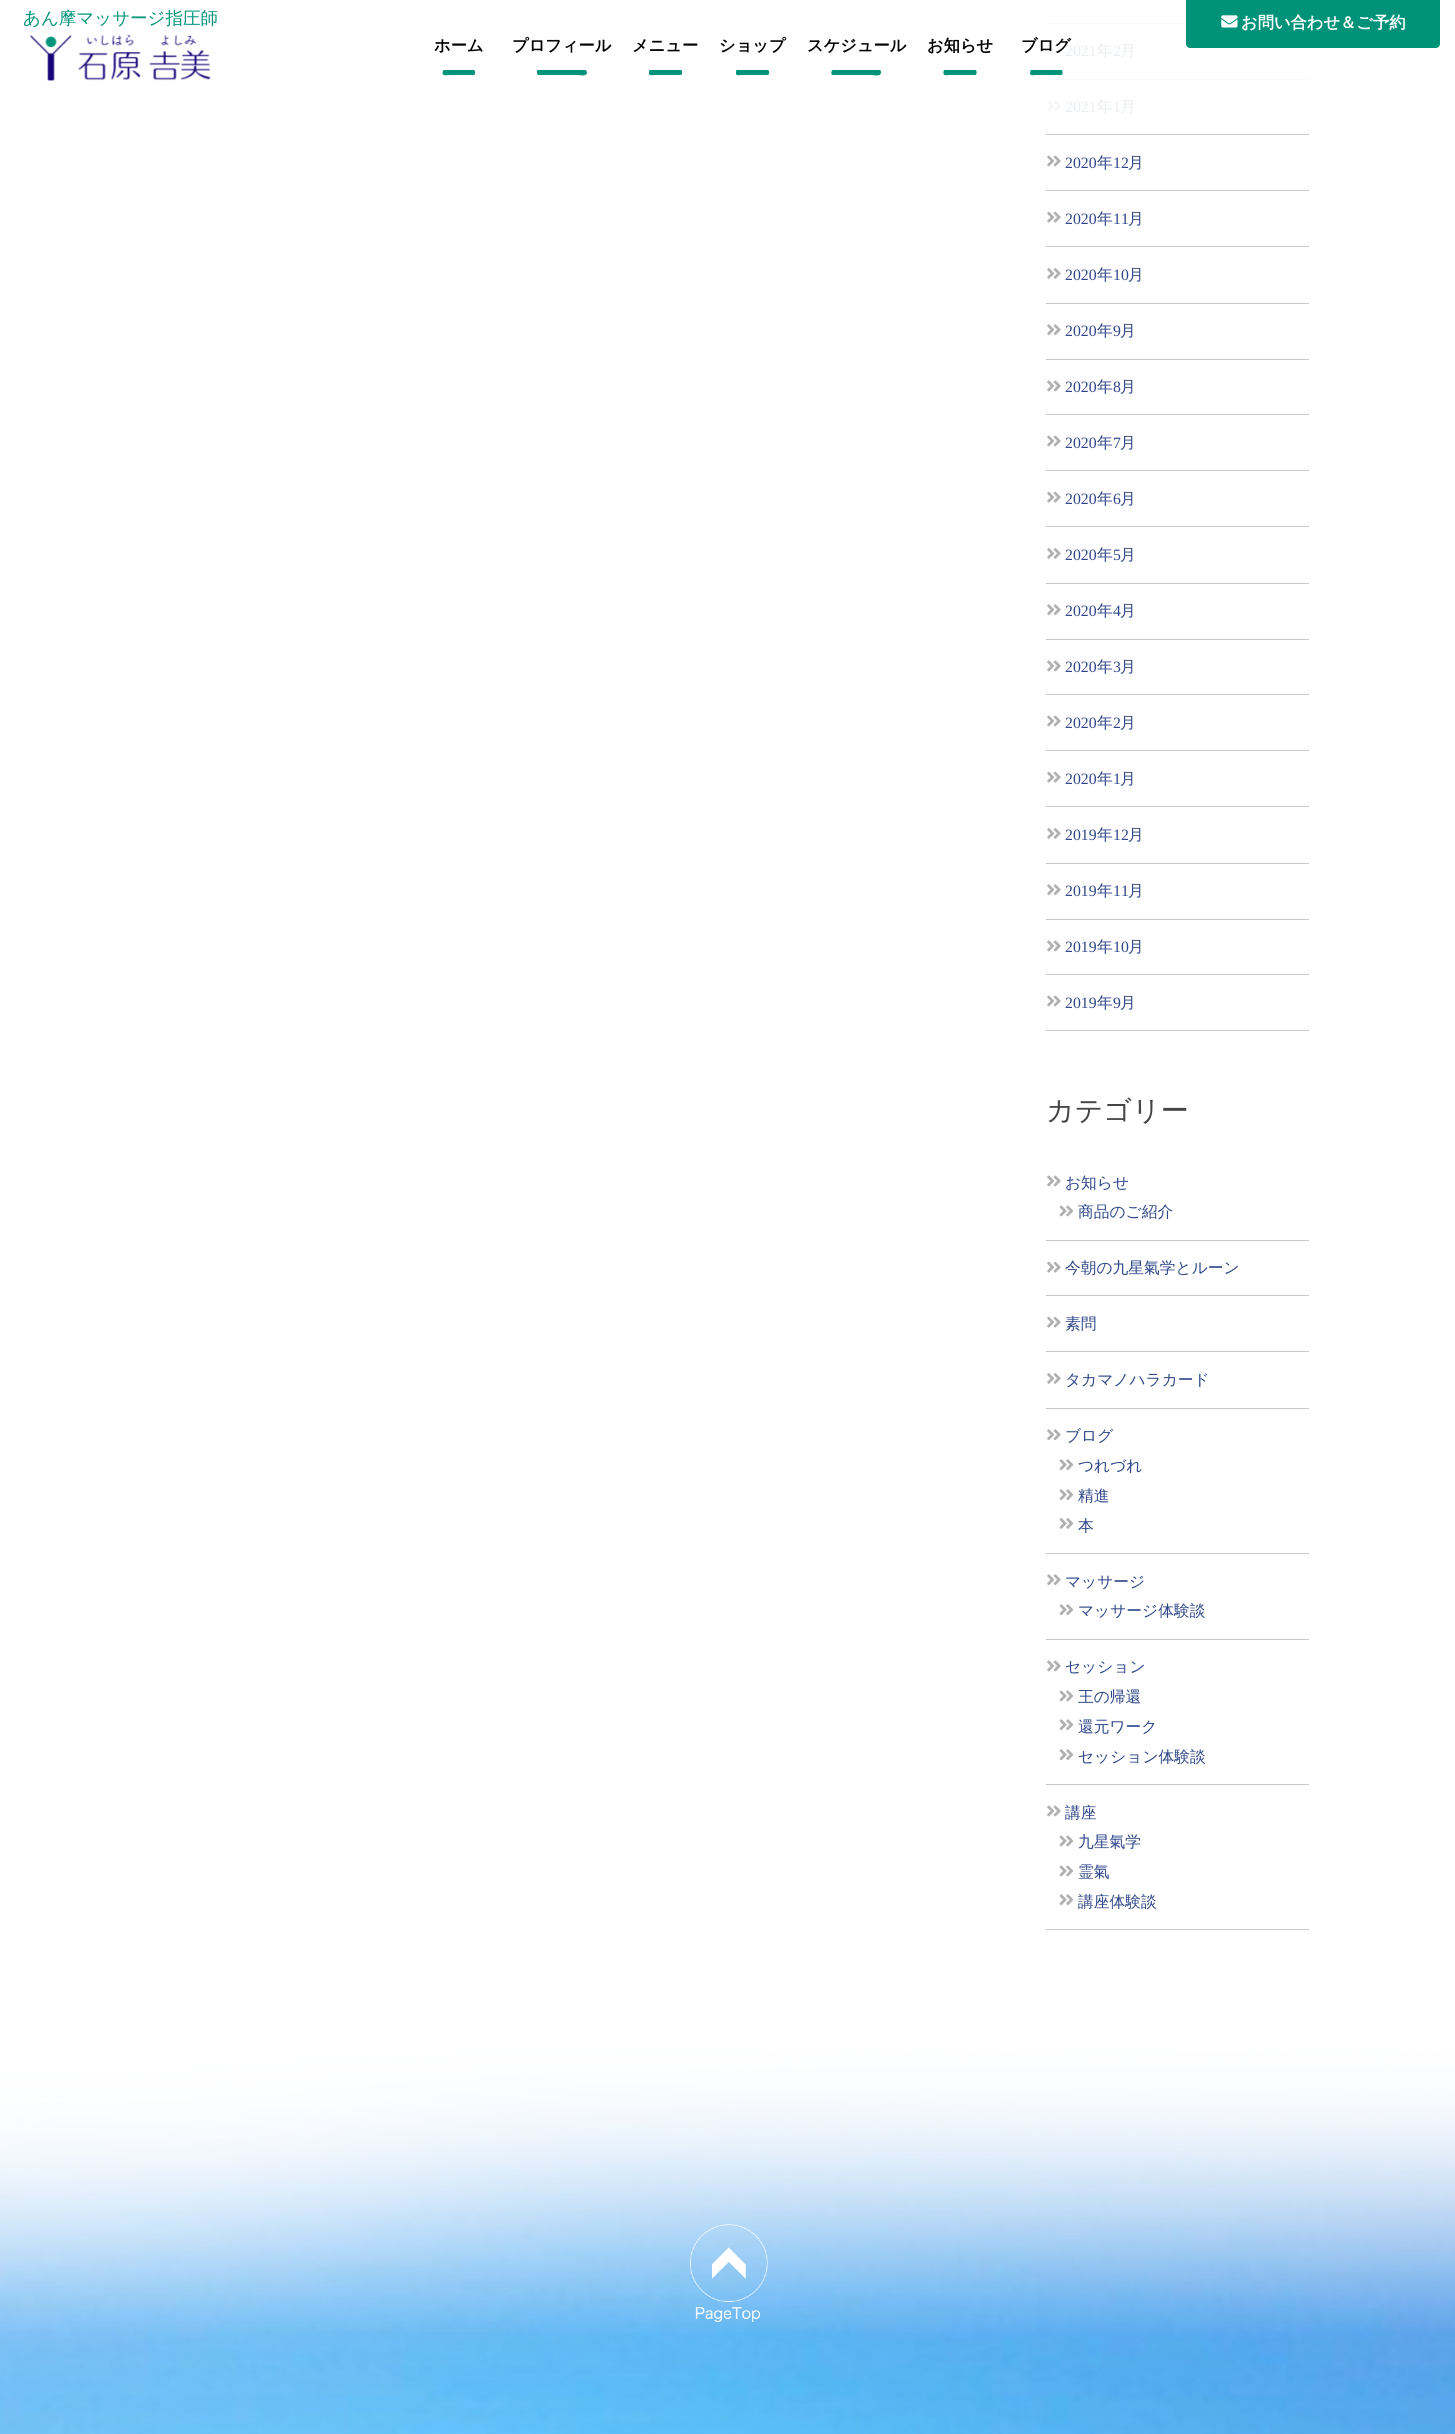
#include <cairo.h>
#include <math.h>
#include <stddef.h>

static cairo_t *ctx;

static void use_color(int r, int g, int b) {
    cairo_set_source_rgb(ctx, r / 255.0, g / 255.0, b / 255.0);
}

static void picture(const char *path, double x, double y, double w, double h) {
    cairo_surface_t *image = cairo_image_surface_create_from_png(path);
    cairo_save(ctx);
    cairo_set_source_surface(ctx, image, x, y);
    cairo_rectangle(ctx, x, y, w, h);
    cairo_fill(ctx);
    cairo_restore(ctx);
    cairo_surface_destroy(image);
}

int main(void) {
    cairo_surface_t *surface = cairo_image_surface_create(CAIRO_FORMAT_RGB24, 1455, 2434);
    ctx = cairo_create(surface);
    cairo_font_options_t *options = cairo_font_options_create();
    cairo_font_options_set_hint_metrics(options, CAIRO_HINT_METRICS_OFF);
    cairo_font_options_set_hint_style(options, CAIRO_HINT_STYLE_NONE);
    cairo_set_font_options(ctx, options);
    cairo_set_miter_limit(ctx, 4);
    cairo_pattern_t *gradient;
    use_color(255, 255, 255);
    cairo_paint(ctx);
    cairo_select_font_face(ctx, "WenQuanYi Zen Hei Medium", CAIRO_FONT_SLANT_NORMAL, CAIRO_FONT_WEIGHT_NORMAL);
    cairo_set_font_size(ctx, 17.5);
    use_color(0, 148, 122);
    cairo_move_to(ctx, 23, 24);
    cairo_show_text(ctx, "あん摩マッサージ指圧師");
    picture("img1.png", 30, 34, 181, 47);
    use_color(0, 147, 122);
    cairo_new_path(ctx);
    cairo_move_to(ctx, 1186, -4);
    cairo_line_to(ctx, 1436, -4);
    cairo_curve_to(ctx, 1438, -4, 1440, -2, 1440, 0);
    cairo_line_to(ctx, 1440, 44);
    cairo_curve_to(ctx, 1440, 46, 1438, 48, 1436, 48);
    cairo_line_to(ctx, 1190, 48);
    cairo_curve_to(ctx, 1188, 48, 1186, 46, 1186, 44);
    cairo_close_path(ctx);
    cairo_fill(ctx);
    picture("img2.png", 1221, 15, 17, 13);
    cairo_select_font_face(ctx, "WenQuanYi Zen Hei", CAIRO_FONT_SLANT_NORMAL, CAIRO_FONT_WEIGHT_BOLD);
    cairo_set_font_size(ctx, 16.25);
    use_color(255, 255, 255);
    cairo_move_to(ctx, 1241, 28);
    cairo_show_text(ctx, "お問い合わせ＆ご予約");
    use_color(0, 0, 0);
    cairo_move_to(ctx, 434, 51);
    cairo_show_text(ctx, "ホーム");
    use_color(0, 148, 122);
    cairo_new_path(ctx);
    cairo_move_to(ctx, 444, 70);
    cairo_line_to(ctx, 474, 70);
    cairo_curve_to(ctx, 475.5, 70.5, 475.5, 74.5, 474, 75);
    cairo_line_to(ctx, 449, 75);
    cairo_curve_to(ctx, 446, 75, 443, 76.5, 442.5, 73);
    cairo_line_to(ctx, 443, 70.5);
    cairo_close_path(ctx);
    cairo_fill(ctx);
    use_color(0, 0, 0);
    cairo_move_to(ctx, 512, 51);
    cairo_show_text(ctx, "プロフィール");
    use_color(0, 148, 122);
    cairo_new_path(ctx);
    cairo_move_to(ctx, 538, 70);
    cairo_line_to(ctx, 585, 70);
    cairo_curve_to(ctx, 587, 70, 587, 73, 587, 73);
    cairo_curve_to(ctx, 586, 77, 579, 75, 578, 75);
    cairo_curve_to(ctx, 573, 75, 538, 75, 538, 75);
    cairo_curve_to(ctx, 537, 74, 536, 70, 538, 70);
    cairo_close_path(ctx);
    cairo_fill(ctx);
    use_color(0, 0, 0);
    cairo_move_to(ctx, 632, 51);
    cairo_show_text(ctx, "メニュー");
    use_color(0, 148, 122);
    cairo_new_path(ctx);
    cairo_move_to(ctx, 650, 70);
    cairo_line_to(ctx, 681, 70);
    cairo_curve_to(ctx, 682.5, 70.5, 682.5, 74.5, 681, 75);
    cairo_line_to(ctx, 655, 75);
    cairo_curve_to(ctx, 651.5, 75, 648.5, 76.5, 649, 72);
    cairo_curve_to(ctx, 649, 71.5, 649, 70, 650, 70);
    cairo_close_path(ctx);
    cairo_fill(ctx);
    use_color(0, 0, 0);
    cairo_move_to(ctx, 719, 51);
    cairo_show_text(ctx, "ショップ");
    use_color(0, 148, 122);
    cairo_new_path(ctx);
    cairo_move_to(ctx, 737, 70);
    cairo_line_to(ctx, 768, 70);
    cairo_curve_to(ctx, 769.5, 70.5, 769.5, 74.5, 768, 75);
    cairo_line_to(ctx, 742, 75);
    cairo_curve_to(ctx, 738.5, 75, 735.5, 76.5, 736, 72);
    cairo_curve_to(ctx, 736, 71.5, 736, 70, 737, 70);
    cairo_close_path(ctx);
    cairo_fill(ctx);
    use_color(0, 0, 0);
    cairo_move_to(ctx, 807, 51);
    cairo_show_text(ctx, "スケジュール");
    use_color(0, 148, 122);
    cairo_new_path(ctx);
    cairo_move_to(ctx, 833, 70);
    cairo_line_to(ctx, 880, 70);
    cairo_curve_to(ctx, 881, 70, 881, 73, 881, 73);
    cairo_curve_to(ctx, 880, 77, 874, 75, 872, 75);
    cairo_curve_to(ctx, 868, 75, 832, 75, 832, 75);
    cairo_curve_to(ctx, 831, 74, 831, 70, 833, 70);
    cairo_close_path(ctx);
    cairo_fill(ctx);
    use_color(0, 0, 0);
    cairo_move_to(ctx, 927, 51);
    cairo_show_text(ctx, "お知らせ");
    use_color(0, 148, 122);
    cairo_new_path(ctx);
    cairo_move_to(ctx, 944.5, 70);
    cairo_line_to(ctx, 975.5, 70);
    cairo_curve_to(ctx, 977, 70.5, 977, 74.5, 975.5, 75);
    cairo_line_to(ctx, 949.5, 75);
    cairo_curve_to(ctx, 946, 75, 943, 76.5, 943.5, 72);
    cairo_curve_to(ctx, 943.5, 71.5, 943.5, 70, 944.5, 70);
    cairo_close_path(ctx);
    cairo_fill(ctx);
    picture("img3.png", 1047, 44, 14, 12);
    cairo_select_font_face(ctx, "Liberation Serif", CAIRO_FONT_SLANT_NORMAL, CAIRO_FONT_WEIGHT_NORMAL);
    cairo_set_font_size(ctx, 15.75);
    use_color(234, 237, 243);
    cairo_move_to(ctx, 1065, 56);
    cairo_show_text(ctx, "2021");
    cairo_select_font_face(ctx, "WenQuanYi Zen Hei", CAIRO_FONT_SLANT_NORMAL, CAIRO_FONT_WEIGHT_BOLD);
    cairo_set_font_size(ctx, 16.25);
    use_color(0, 0, 0);
    cairo_move_to(ctx, 1021, 51);
    cairo_show_text(ctx, "ブログ");
    use_color(0, 148, 122);
    cairo_new_path(ctx);
    cairo_move_to(ctx, 1031, 70);
    cairo_line_to(ctx, 1061.5, 70);
    cairo_curve_to(ctx, 1063, 70.5, 1063, 74.5, 1061.5, 75);
    cairo_line_to(ctx, 1036, 75);
    cairo_curve_to(ctx, 1033.5, 75, 1030.5, 76.5, 1030, 73);
    cairo_line_to(ctx, 1030.5, 70.5);
    cairo_close_path(ctx);
    cairo_fill(ctx);
    use_color(250, 250, 250);
    cairo_rectangle(ctx, 1046, 23, 140, 1);
    cairo_fill(ctx);
    cairo_rectangle(ctx, 1046, 79, 263, 1);
    cairo_fill(ctx);
    cairo_select_font_face(ctx, "WenQuanYi Zen Hei Medium", CAIRO_FONT_SLANT_NORMAL, CAIRO_FONT_WEIGHT_NORMAL);
    cairo_set_font_size(ctx, 15.75);
    use_color(234, 237, 243);
    cairo_move_to(ctx, 1097, 56);
    cairo_show_text(ctx, "年");
    cairo_select_font_face(ctx, "Liberation Serif", CAIRO_FONT_SLANT_NORMAL, CAIRO_FONT_WEIGHT_NORMAL);
    cairo_move_to(ctx, 1113, 56);
    cairo_show_text(ctx, "2");
    cairo_select_font_face(ctx, "WenQuanYi Zen Hei Medium", CAIRO_FONT_SLANT_NORMAL, CAIRO_FONT_WEIGHT_NORMAL);
    cairo_move_to(ctx, 1120, 56);
    cairo_show_text(ctx, "月");
    use_color(200, 200, 200);
    cairo_rectangle(ctx, 1046, 134, 263, 1);
    cairo_fill(ctx);
    picture("img4.png", 1047, 100, 14, 12);
    cairo_select_font_face(ctx, "Liberation Serif", CAIRO_FONT_SLANT_NORMAL, CAIRO_FONT_WEIGHT_NORMAL);
    use_color(234, 237, 243);
    cairo_move_to(ctx, 1065, 112);
    cairo_show_text(ctx, "2021");
    cairo_select_font_face(ctx, "WenQuanYi Zen Hei Medium", CAIRO_FONT_SLANT_NORMAL, CAIRO_FONT_WEIGHT_NORMAL);
    cairo_move_to(ctx, 1097, 112);
    cairo_show_text(ctx, "年");
    cairo_select_font_face(ctx, "Liberation Serif", CAIRO_FONT_SLANT_NORMAL, CAIRO_FONT_WEIGHT_NORMAL);
    cairo_move_to(ctx, 1113, 112);
    cairo_show_text(ctx, "1");
    cairo_select_font_face(ctx, "WenQuanYi Zen Hei Medium", CAIRO_FONT_SLANT_NORMAL, CAIRO_FONT_WEIGHT_NORMAL);
    cairo_move_to(ctx, 1120, 112);
    cairo_show_text(ctx, "月");
    use_color(200, 200, 200);
    cairo_rectangle(ctx, 1046, 190, 263, 1);
    cairo_fill(ctx);
    picture("img5.png", 1047, 155, 14, 12);
    cairo_select_font_face(ctx, "Liberation Serif", CAIRO_FONT_SLANT_NORMAL, CAIRO_FONT_WEIGHT_NORMAL);
    use_color(46, 70, 137);
    cairo_move_to(ctx, 1065, 168);
    cairo_show_text(ctx, "2020");
    cairo_select_font_face(ctx, "WenQuanYi Zen Hei Medium", CAIRO_FONT_SLANT_NORMAL, CAIRO_FONT_WEIGHT_NORMAL);
    cairo_move_to(ctx, 1097, 168);
    cairo_show_text(ctx, "年");
    cairo_select_font_face(ctx, "Liberation Serif", CAIRO_FONT_SLANT_NORMAL, CAIRO_FONT_WEIGHT_NORMAL);
    cairo_move_to(ctx, 1113, 168);
    cairo_show_text(ctx, "12");
    cairo_select_font_face(ctx, "WenQuanYi Zen Hei Medium", CAIRO_FONT_SLANT_NORMAL, CAIRO_FONT_WEIGHT_NORMAL);
    cairo_move_to(ctx, 1128, 168);
    cairo_show_text(ctx, "月");
    use_color(200, 200, 200);
    cairo_rectangle(ctx, 1046, 246, 263, 1);
    cairo_fill(ctx);
    picture("img6.png", 1047, 211, 14, 12);
    cairo_select_font_face(ctx, "Liberation Serif", CAIRO_FONT_SLANT_NORMAL, CAIRO_FONT_WEIGHT_NORMAL);
    use_color(46, 70, 137);
    cairo_move_to(ctx, 1065, 224);
    cairo_show_text(ctx, "2020");
    cairo_select_font_face(ctx, "WenQuanYi Zen Hei Medium", CAIRO_FONT_SLANT_NORMAL, CAIRO_FONT_WEIGHT_NORMAL);
    cairo_move_to(ctx, 1097, 224);
    cairo_show_text(ctx, "年");
    cairo_select_font_face(ctx, "Liberation Serif", CAIRO_FONT_SLANT_NORMAL, CAIRO_FONT_WEIGHT_NORMAL);
    cairo_move_to(ctx, 1113, 224);
    cairo_show_text(ctx, "11");
    cairo_select_font_face(ctx, "WenQuanYi Zen Hei Medium", CAIRO_FONT_SLANT_NORMAL, CAIRO_FONT_WEIGHT_NORMAL);
    cairo_move_to(ctx, 1128, 224);
    cairo_show_text(ctx, "月");
    use_color(200, 200, 200);
    cairo_rectangle(ctx, 1046, 303, 263, 1);
    cairo_fill(ctx);
    picture("img7.png", 1047, 268, 14, 11);
    cairo_select_font_face(ctx, "Liberation Serif", CAIRO_FONT_SLANT_NORMAL, CAIRO_FONT_WEIGHT_NORMAL);
    use_color(46, 70, 137);
    cairo_move_to(ctx, 1065, 280);
    cairo_show_text(ctx, "2020");
    cairo_select_font_face(ctx, "WenQuanYi Zen Hei Medium", CAIRO_FONT_SLANT_NORMAL, CAIRO_FONT_WEIGHT_NORMAL);
    cairo_move_to(ctx, 1097, 280);
    cairo_show_text(ctx, "年");
    cairo_select_font_face(ctx, "Liberation Serif", CAIRO_FONT_SLANT_NORMAL, CAIRO_FONT_WEIGHT_NORMAL);
    cairo_move_to(ctx, 1113, 280);
    cairo_show_text(ctx, "10");
    cairo_select_font_face(ctx, "WenQuanYi Zen Hei Medium", CAIRO_FONT_SLANT_NORMAL, CAIRO_FONT_WEIGHT_NORMAL);
    cairo_move_to(ctx, 1128, 280);
    cairo_show_text(ctx, "月");
    use_color(200, 200, 200);
    cairo_rectangle(ctx, 1046, 359, 263, 1);
    cairo_fill(ctx);
    picture("img8.png", 1047, 324, 14, 12);
    cairo_select_font_face(ctx, "Liberation Serif", CAIRO_FONT_SLANT_NORMAL, CAIRO_FONT_WEIGHT_NORMAL);
    use_color(46, 70, 137);
    cairo_move_to(ctx, 1065, 336);
    cairo_show_text(ctx, "2020");
    cairo_select_font_face(ctx, "WenQuanYi Zen Hei Medium", CAIRO_FONT_SLANT_NORMAL, CAIRO_FONT_WEIGHT_NORMAL);
    cairo_move_to(ctx, 1097, 336);
    cairo_show_text(ctx, "年");
    cairo_select_font_face(ctx, "Liberation Serif", CAIRO_FONT_SLANT_NORMAL, CAIRO_FONT_WEIGHT_NORMAL);
    cairo_move_to(ctx, 1113, 336);
    cairo_show_text(ctx, "9");
    cairo_select_font_face(ctx, "WenQuanYi Zen Hei Medium", CAIRO_FONT_SLANT_NORMAL, CAIRO_FONT_WEIGHT_NORMAL);
    cairo_move_to(ctx, 1120, 336);
    cairo_show_text(ctx, "月");
    use_color(200, 200, 200);
    cairo_rectangle(ctx, 1046, 414, 263, 1);
    cairo_fill(ctx);
    picture("img5.png", 1047, 380, 14, 12);
    cairo_select_font_face(ctx, "Liberation Serif", CAIRO_FONT_SLANT_NORMAL, CAIRO_FONT_WEIGHT_NORMAL);
    use_color(46, 70, 137);
    cairo_move_to(ctx, 1065, 392);
    cairo_show_text(ctx, "2020");
    cairo_select_font_face(ctx, "WenQuanYi Zen Hei Medium", CAIRO_FONT_SLANT_NORMAL, CAIRO_FONT_WEIGHT_NORMAL);
    cairo_move_to(ctx, 1097, 392);
    cairo_show_text(ctx, "年");
    cairo_select_font_face(ctx, "Liberation Serif", CAIRO_FONT_SLANT_NORMAL, CAIRO_FONT_WEIGHT_NORMAL);
    cairo_move_to(ctx, 1113, 392);
    cairo_show_text(ctx, "8");
    cairo_select_font_face(ctx, "WenQuanYi Zen Hei Medium", CAIRO_FONT_SLANT_NORMAL, CAIRO_FONT_WEIGHT_NORMAL);
    cairo_move_to(ctx, 1120, 392);
    cairo_show_text(ctx, "月");
    use_color(200, 200, 200);
    cairo_rectangle(ctx, 1046, 470, 263, 1);
    cairo_fill(ctx);
    picture("img5.png", 1047, 435, 14, 12);
    cairo_select_font_face(ctx, "Liberation Serif", CAIRO_FONT_SLANT_NORMAL, CAIRO_FONT_WEIGHT_NORMAL);
    use_color(46, 70, 137);
    cairo_move_to(ctx, 1065, 448);
    cairo_show_text(ctx, "2020");
    cairo_select_font_face(ctx, "WenQuanYi Zen Hei Medium", CAIRO_FONT_SLANT_NORMAL, CAIRO_FONT_WEIGHT_NORMAL);
    cairo_move_to(ctx, 1097, 448);
    cairo_show_text(ctx, "年");
    cairo_select_font_face(ctx, "Liberation Serif", CAIRO_FONT_SLANT_NORMAL, CAIRO_FONT_WEIGHT_NORMAL);
    cairo_move_to(ctx, 1113, 448);
    cairo_show_text(ctx, "7");
    cairo_select_font_face(ctx, "WenQuanYi Zen Hei Medium", CAIRO_FONT_SLANT_NORMAL, CAIRO_FONT_WEIGHT_NORMAL);
    cairo_move_to(ctx, 1120, 448);
    cairo_show_text(ctx, "月");
    use_color(200, 200, 200);
    cairo_rectangle(ctx, 1046, 526, 263, 1);
    cairo_fill(ctx);
    picture("img6.png", 1047, 491, 14, 12);
    cairo_select_font_face(ctx, "Liberation Serif", CAIRO_FONT_SLANT_NORMAL, CAIRO_FONT_WEIGHT_NORMAL);
    use_color(46, 70, 137);
    cairo_move_to(ctx, 1065, 504);
    cairo_show_text(ctx, "2020");
    cairo_select_font_face(ctx, "WenQuanYi Zen Hei Medium", CAIRO_FONT_SLANT_NORMAL, CAIRO_FONT_WEIGHT_NORMAL);
    cairo_move_to(ctx, 1097, 504);
    cairo_show_text(ctx, "年");
    cairo_select_font_face(ctx, "Liberation Serif", CAIRO_FONT_SLANT_NORMAL, CAIRO_FONT_WEIGHT_NORMAL);
    cairo_move_to(ctx, 1113, 504);
    cairo_show_text(ctx, "6");
    cairo_select_font_face(ctx, "WenQuanYi Zen Hei Medium", CAIRO_FONT_SLANT_NORMAL, CAIRO_FONT_WEIGHT_NORMAL);
    cairo_move_to(ctx, 1120, 504);
    cairo_show_text(ctx, "月");
    use_color(200, 200, 200);
    cairo_rectangle(ctx, 1046, 583, 263, 1);
    cairo_fill(ctx);
    picture("img7.png", 1047, 548, 14, 11);
    cairo_select_font_face(ctx, "Liberation Serif", CAIRO_FONT_SLANT_NORMAL, CAIRO_FONT_WEIGHT_NORMAL);
    use_color(46, 70, 137);
    cairo_move_to(ctx, 1065, 560);
    cairo_show_text(ctx, "2020");
    cairo_select_font_face(ctx, "WenQuanYi Zen Hei Medium", CAIRO_FONT_SLANT_NORMAL, CAIRO_FONT_WEIGHT_NORMAL);
    cairo_move_to(ctx, 1097, 560);
    cairo_show_text(ctx, "年");
    cairo_select_font_face(ctx, "Liberation Serif", CAIRO_FONT_SLANT_NORMAL, CAIRO_FONT_WEIGHT_NORMAL);
    cairo_move_to(ctx, 1113, 560);
    cairo_show_text(ctx, "5");
    cairo_select_font_face(ctx, "WenQuanYi Zen Hei Medium", CAIRO_FONT_SLANT_NORMAL, CAIRO_FONT_WEIGHT_NORMAL);
    cairo_move_to(ctx, 1120, 560);
    cairo_show_text(ctx, "月");
    use_color(200, 200, 200);
    cairo_rectangle(ctx, 1046, 639, 263, 1);
    cairo_fill(ctx);
    picture("img8.png", 1047, 604, 14, 12);
    cairo_select_font_face(ctx, "Liberation Serif", CAIRO_FONT_SLANT_NORMAL, CAIRO_FONT_WEIGHT_NORMAL);
    use_color(46, 70, 137);
    cairo_move_to(ctx, 1065, 616);
    cairo_show_text(ctx, "2020");
    cairo_select_font_face(ctx, "WenQuanYi Zen Hei Medium", CAIRO_FONT_SLANT_NORMAL, CAIRO_FONT_WEIGHT_NORMAL);
    cairo_move_to(ctx, 1097, 616);
    cairo_show_text(ctx, "年");
    cairo_select_font_face(ctx, "Liberation Serif", CAIRO_FONT_SLANT_NORMAL, CAIRO_FONT_WEIGHT_NORMAL);
    cairo_move_to(ctx, 1113, 616);
    cairo_show_text(ctx, "4");
    cairo_select_font_face(ctx, "WenQuanYi Zen Hei Medium", CAIRO_FONT_SLANT_NORMAL, CAIRO_FONT_WEIGHT_NORMAL);
    cairo_move_to(ctx, 1120, 616);
    cairo_show_text(ctx, "月");
    use_color(200, 200, 200);
    cairo_rectangle(ctx, 1046, 694, 263, 1);
    cairo_fill(ctx);
    picture("img5.png", 1047, 660, 14, 12);
    cairo_select_font_face(ctx, "Liberation Serif", CAIRO_FONT_SLANT_NORMAL, CAIRO_FONT_WEIGHT_NORMAL);
    use_color(46, 70, 137);
    cairo_move_to(ctx, 1065, 672);
    cairo_show_text(ctx, "2020");
    cairo_select_font_face(ctx, "WenQuanYi Zen Hei Medium", CAIRO_FONT_SLANT_NORMAL, CAIRO_FONT_WEIGHT_NORMAL);
    cairo_move_to(ctx, 1097, 672);
    cairo_show_text(ctx, "年");
    cairo_select_font_face(ctx, "Liberation Serif", CAIRO_FONT_SLANT_NORMAL, CAIRO_FONT_WEIGHT_NORMAL);
    cairo_move_to(ctx, 1113, 672);
    cairo_show_text(ctx, "3");
    cairo_select_font_face(ctx, "WenQuanYi Zen Hei Medium", CAIRO_FONT_SLANT_NORMAL, CAIRO_FONT_WEIGHT_NORMAL);
    cairo_move_to(ctx, 1120, 672);
    cairo_show_text(ctx, "月");
    use_color(200, 200, 200);
    cairo_rectangle(ctx, 1046, 750, 263, 1);
    cairo_fill(ctx);
    picture("img5.png", 1047, 715, 14, 12);
    cairo_select_font_face(ctx, "Liberation Serif", CAIRO_FONT_SLANT_NORMAL, CAIRO_FONT_WEIGHT_NORMAL);
    use_color(46, 70, 137);
    cairo_move_to(ctx, 1065, 728);
    cairo_show_text(ctx, "2020");
    cairo_select_font_face(ctx, "WenQuanYi Zen Hei Medium", CAIRO_FONT_SLANT_NORMAL, CAIRO_FONT_WEIGHT_NORMAL);
    cairo_move_to(ctx, 1097, 728);
    cairo_show_text(ctx, "年");
    cairo_select_font_face(ctx, "Liberation Serif", CAIRO_FONT_SLANT_NORMAL, CAIRO_FONT_WEIGHT_NORMAL);
    cairo_move_to(ctx, 1113, 728);
    cairo_show_text(ctx, "2");
    cairo_select_font_face(ctx, "WenQuanYi Zen Hei Medium", CAIRO_FONT_SLANT_NORMAL, CAIRO_FONT_WEIGHT_NORMAL);
    cairo_move_to(ctx, 1120, 728);
    cairo_show_text(ctx, "月");
    use_color(200, 200, 200);
    cairo_rectangle(ctx, 1046, 806, 263, 1);
    cairo_fill(ctx);
    picture("img6.png", 1047, 771, 14, 12);
    cairo_select_font_face(ctx, "Liberation Serif", CAIRO_FONT_SLANT_NORMAL, CAIRO_FONT_WEIGHT_NORMAL);
    use_color(46, 70, 137);
    cairo_move_to(ctx, 1065, 784);
    cairo_show_text(ctx, "2020");
    cairo_select_font_face(ctx, "WenQuanYi Zen Hei Medium", CAIRO_FONT_SLANT_NORMAL, CAIRO_FONT_WEIGHT_NORMAL);
    cairo_move_to(ctx, 1097, 784);
    cairo_show_text(ctx, "年");
    cairo_select_font_face(ctx, "Liberation Serif", CAIRO_FONT_SLANT_NORMAL, CAIRO_FONT_WEIGHT_NORMAL);
    cairo_move_to(ctx, 1113, 784);
    cairo_show_text(ctx, "1");
    cairo_select_font_face(ctx, "WenQuanYi Zen Hei Medium", CAIRO_FONT_SLANT_NORMAL, CAIRO_FONT_WEIGHT_NORMAL);
    cairo_move_to(ctx, 1120, 784);
    cairo_show_text(ctx, "月");
    use_color(200, 200, 200);
    cairo_rectangle(ctx, 1046, 863, 263, 1);
    cairo_fill(ctx);
    picture("img7.png", 1047, 828, 14, 11);
    cairo_select_font_face(ctx, "Liberation Serif", CAIRO_FONT_SLANT_NORMAL, CAIRO_FONT_WEIGHT_NORMAL);
    use_color(46, 70, 137);
    cairo_move_to(ctx, 1065, 840);
    cairo_show_text(ctx, "2019");
    cairo_select_font_face(ctx, "WenQuanYi Zen Hei Medium", CAIRO_FONT_SLANT_NORMAL, CAIRO_FONT_WEIGHT_NORMAL);
    cairo_move_to(ctx, 1097, 840);
    cairo_show_text(ctx, "年");
    cairo_select_font_face(ctx, "Liberation Serif", CAIRO_FONT_SLANT_NORMAL, CAIRO_FONT_WEIGHT_NORMAL);
    cairo_move_to(ctx, 1113, 840);
    cairo_show_text(ctx, "12");
    cairo_select_font_face(ctx, "WenQuanYi Zen Hei Medium", CAIRO_FONT_SLANT_NORMAL, CAIRO_FONT_WEIGHT_NORMAL);
    cairo_move_to(ctx, 1128, 840);
    cairo_show_text(ctx, "月");
    use_color(200, 200, 200);
    cairo_rectangle(ctx, 1046, 919, 263, 1);
    cairo_fill(ctx);
    picture("img8.png", 1047, 884, 14, 12);
    cairo_select_font_face(ctx, "Liberation Serif", CAIRO_FONT_SLANT_NORMAL, CAIRO_FONT_WEIGHT_NORMAL);
    use_color(46, 70, 137);
    cairo_move_to(ctx, 1065, 896);
    cairo_show_text(ctx, "2019");
    cairo_select_font_face(ctx, "WenQuanYi Zen Hei Medium", CAIRO_FONT_SLANT_NORMAL, CAIRO_FONT_WEIGHT_NORMAL);
    cairo_move_to(ctx, 1097, 896);
    cairo_show_text(ctx, "年");
    cairo_select_font_face(ctx, "Liberation Serif", CAIRO_FONT_SLANT_NORMAL, CAIRO_FONT_WEIGHT_NORMAL);
    cairo_move_to(ctx, 1113, 896);
    cairo_show_text(ctx, "11");
    cairo_select_font_face(ctx, "WenQuanYi Zen Hei Medium", CAIRO_FONT_SLANT_NORMAL, CAIRO_FONT_WEIGHT_NORMAL);
    cairo_move_to(ctx, 1128, 896);
    cairo_show_text(ctx, "月");
    use_color(200, 200, 200);
    cairo_rectangle(ctx, 1046, 974, 263, 1);
    cairo_fill(ctx);
    picture("img5.png", 1047, 940, 14, 12);
    cairo_select_font_face(ctx, "Liberation Serif", CAIRO_FONT_SLANT_NORMAL, CAIRO_FONT_WEIGHT_NORMAL);
    use_color(46, 70, 137);
    cairo_move_to(ctx, 1065, 952);
    cairo_show_text(ctx, "2019");
    cairo_select_font_face(ctx, "WenQuanYi Zen Hei Medium", CAIRO_FONT_SLANT_NORMAL, CAIRO_FONT_WEIGHT_NORMAL);
    cairo_move_to(ctx, 1097, 952);
    cairo_show_text(ctx, "年");
    cairo_select_font_face(ctx, "Liberation Serif", CAIRO_FONT_SLANT_NORMAL, CAIRO_FONT_WEIGHT_NORMAL);
    cairo_move_to(ctx, 1113, 952);
    cairo_show_text(ctx, "10");
    cairo_select_font_face(ctx, "WenQuanYi Zen Hei Medium", CAIRO_FONT_SLANT_NORMAL, CAIRO_FONT_WEIGHT_NORMAL);
    cairo_move_to(ctx, 1128, 952);
    cairo_show_text(ctx, "月");
    use_color(200, 200, 200);
    cairo_rectangle(ctx, 1046, 1030, 263, 1);
    cairo_fill(ctx);
    picture("img5.png", 1047, 995, 14, 12);
    cairo_select_font_face(ctx, "Liberation Serif", CAIRO_FONT_SLANT_NORMAL, CAIRO_FONT_WEIGHT_NORMAL);
    use_color(46, 70, 137);
    cairo_move_to(ctx, 1065, 1008);
    cairo_show_text(ctx, "2019");
    cairo_select_font_face(ctx, "WenQuanYi Zen Hei Medium", CAIRO_FONT_SLANT_NORMAL, CAIRO_FONT_WEIGHT_NORMAL);
    cairo_move_to(ctx, 1097, 1008);
    cairo_show_text(ctx, "年");
    cairo_select_font_face(ctx, "Liberation Serif", CAIRO_FONT_SLANT_NORMAL, CAIRO_FONT_WEIGHT_NORMAL);
    cairo_move_to(ctx, 1113, 1008);
    cairo_show_text(ctx, "9");
    cairo_select_font_face(ctx, "WenQuanYi Zen Hei Medium", CAIRO_FONT_SLANT_NORMAL, CAIRO_FONT_WEIGHT_NORMAL);
    cairo_move_to(ctx, 1120, 1008);
    cairo_show_text(ctx, "月");
    cairo_set_font_size(ctx, 28);
    use_color(69, 69, 69);
    cairo_move_to(ctx, 1046, 1120);
    cairo_show_text(ctx, "カテゴリー");
    use_color(200, 200, 200);
    cairo_rectangle(ctx, 1046, 1240, 263, 1);
    cairo_fill(ctx);
    picture("img5.png", 1047, 1175, 14, 12);
    cairo_set_font_size(ctx, 15.75);
    use_color(46, 70, 137);
    cairo_move_to(ctx, 1065, 1188);
    cairo_show_text(ctx, "お知らせ");
    picture("img9.png", 1059, 1205, 15, 12);
    cairo_move_to(ctx, 1078, 1217);
    cairo_show_text(ctx, "商品のご紹介");
    use_color(200, 200, 200);
    cairo_rectangle(ctx, 1046, 1295, 263, 1);
    cairo_fill(ctx);
    picture("img6.png", 1047, 1261, 14, 12);
    use_color(46, 70, 137);
    cairo_move_to(ctx, 1065, 1273);
    cairo_show_text(ctx, "今朝の九星氣学とルーン");
    use_color(200, 200, 200);
    cairo_rectangle(ctx, 1046, 1351, 263, 1);
    cairo_fill(ctx);
    picture("img6.png", 1047, 1316, 14, 12);
    use_color(46, 70, 137);
    cairo_move_to(ctx, 1065, 1329);
    cairo_show_text(ctx, "素問");
    use_color(200, 200, 200);
    cairo_rectangle(ctx, 1046, 1408, 263, 1);
    cairo_fill(ctx);
    picture("img7.png", 1047, 1373, 14, 11);
    use_color(46, 70, 137);
    cairo_move_to(ctx, 1065, 1385);
    cairo_show_text(ctx, "タカマノハラカード");
    use_color(200, 200, 200);
    cairo_rectangle(ctx, 1046, 1553, 263, 1);
    cairo_fill(ctx);
    picture("img8.png", 1047, 1429, 14, 12);
    use_color(46, 70, 137);
    cairo_move_to(ctx, 1065, 1441);
    cairo_show_text(ctx, "ブログ");
    picture("img10.png", 1059, 1459, 15, 12);
    cairo_move_to(ctx, 1078, 1471);
    cairo_show_text(ctx, "つれづれ");
    picture("img10.png", 1059, 1489, 15, 12);
    cairo_move_to(ctx, 1078, 1501);
    cairo_show_text(ctx, "精進");
    picture("img11.png", 1059, 1518, 15, 11);
    cairo_move_to(ctx, 1078, 1531);
    cairo_show_text(ctx, "本");
    use_color(200, 200, 200);
    cairo_rectangle(ctx, 1046, 1639, 263, 1);
    cairo_fill(ctx);
    picture("img8.png", 1047, 1574, 14, 12);
    use_color(46, 70, 137);
    cairo_move_to(ctx, 1065, 1587);
    cairo_show_text(ctx, "マッサージ");
    picture("img10.png", 1059, 1604, 15, 12);
    cairo_move_to(ctx, 1078, 1616);
    cairo_show_text(ctx, "マッサージ体験談");
    use_color(200, 200, 200);
    cairo_rectangle(ctx, 1046, 1784, 263, 1);
    cairo_fill(ctx);
    picture("img5.png", 1047, 1660, 14, 12);
    use_color(46, 70, 137);
    cairo_move_to(ctx, 1065, 1672);
    cairo_show_text(ctx, "セッション");
    picture("img9.png", 1059, 1690, 15, 12);
    cairo_move_to(ctx, 1078, 1702);
    cairo_show_text(ctx, "王の帰還");
    picture("img10.png", 1059, 1719, 15, 12);
    cairo_move_to(ctx, 1078, 1732);
    cairo_show_text(ctx, "還元ワーク");
    picture("img10.png", 1059, 1749, 15, 12);
    cairo_move_to(ctx, 1078, 1762);
    cairo_show_text(ctx, "セッション体験談");
    use_color(200, 200, 200);
    cairo_rectangle(ctx, 1046, 1929, 263, 1);
    cairo_fill(ctx);
    picture("img5.png", 1047, 1805, 14, 12);
    use_color(46, 70, 137);
    cairo_move_to(ctx, 1065, 1818);
    cairo_show_text(ctx, "講座");
    picture("img9.png", 1059, 1835, 15, 12);
    cairo_move_to(ctx, 1078, 1847);
    cairo_show_text(ctx, "九星氣学");
    picture("img9.png", 1059, 1865, 15, 12);
    cairo_move_to(ctx, 1078, 1877);
    cairo_show_text(ctx, "霊氣");
    picture("img10.png", 1059, 1894, 15, 12);
    cairo_move_to(ctx, 1078, 1907);
    cairo_show_text(ctx, "講座体験談");
    picture("img12.png", 0, 2041, 1455, 393);
    gradient = cairo_pattern_create_linear(728, 1950, 728, 2338);
    cairo_pattern_add_color_stop_rgba(gradient, 0.23, 1, 1, 1, 1);
    cairo_pattern_add_color_stop_rgba(gradient, 1, 1, 1, 1, 0);
    cairo_set_source(ctx, gradient);
    cairo_pattern_destroy(gradient);
    cairo_rectangle(ctx, 0, 2041, 1455, 291);
    cairo_fill(ctx);
    picture("img13.png", 690, 2224, 78, 98);
    cairo_surface_write_to_png(surface, "result.png");
    cairo_font_options_destroy(options);
    cairo_destroy(ctx);
    cairo_surface_destroy(surface);
    return 0;
}
